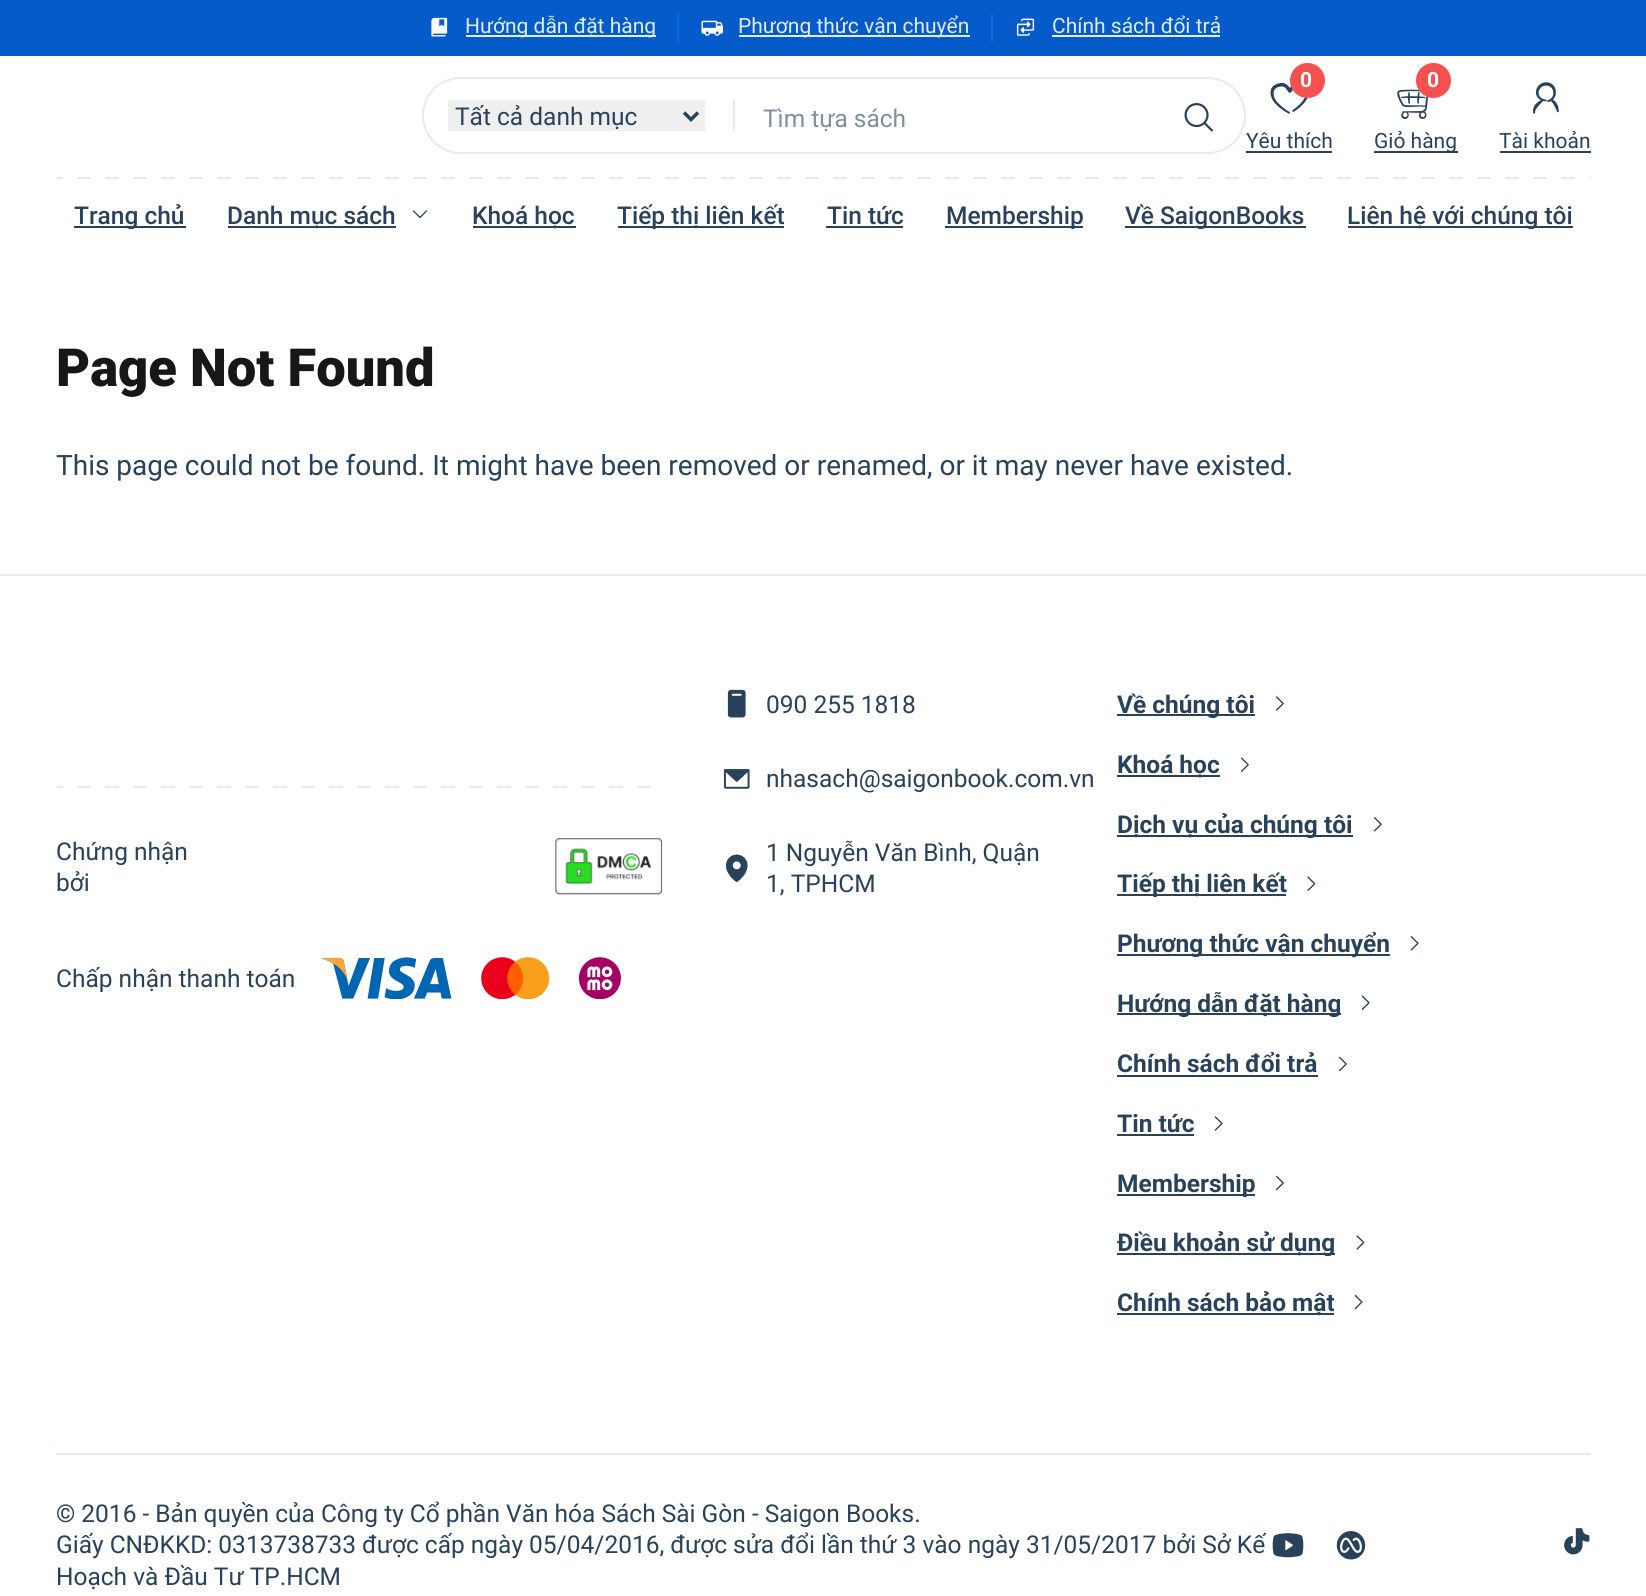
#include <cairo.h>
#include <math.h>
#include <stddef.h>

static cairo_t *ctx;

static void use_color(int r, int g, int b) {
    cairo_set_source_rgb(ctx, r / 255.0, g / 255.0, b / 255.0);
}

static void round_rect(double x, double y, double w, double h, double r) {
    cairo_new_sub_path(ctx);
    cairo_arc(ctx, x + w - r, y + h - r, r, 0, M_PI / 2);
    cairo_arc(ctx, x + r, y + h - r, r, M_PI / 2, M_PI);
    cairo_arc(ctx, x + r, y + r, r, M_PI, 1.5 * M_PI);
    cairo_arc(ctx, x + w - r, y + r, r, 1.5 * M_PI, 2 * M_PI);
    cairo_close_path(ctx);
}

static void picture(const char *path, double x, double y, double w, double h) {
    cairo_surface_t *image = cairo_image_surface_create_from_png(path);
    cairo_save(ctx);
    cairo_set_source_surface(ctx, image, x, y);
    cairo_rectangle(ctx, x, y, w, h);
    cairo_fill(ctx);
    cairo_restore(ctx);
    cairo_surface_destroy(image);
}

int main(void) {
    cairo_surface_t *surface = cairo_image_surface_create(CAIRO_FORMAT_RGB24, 1646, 1596);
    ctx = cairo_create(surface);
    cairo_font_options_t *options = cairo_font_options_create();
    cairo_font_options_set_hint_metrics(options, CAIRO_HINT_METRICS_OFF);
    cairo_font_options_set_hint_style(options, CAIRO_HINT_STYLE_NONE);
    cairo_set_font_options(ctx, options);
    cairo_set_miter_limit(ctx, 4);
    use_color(255, 255, 255);
    cairo_paint(ctx);
    use_color(6, 91, 203);
    cairo_rectangle(ctx, 0, 0, 1646, 56);
    cairo_fill(ctx);
    picture("img1.png", 431, 17, 17, 20);
    use_color(226, 235, 246);
    cairo_rectangle(ctx, 466, 35, 190, 2);
    cairo_fill(ctx);
    cairo_select_font_face(ctx, "Roboto", CAIRO_FONT_SLANT_NORMAL, CAIRO_FONT_WEIGHT_NORMAL);
    cairo_set_font_size(ctx, 21);
    cairo_move_to(ctx, 465, 33);
    cairo_show_text(ctx, "Hướng dẫn đặt hàng");
    use_color(10, 109, 221);
    cairo_rectangle(ctx, 677, 14, 2, 28);
    cairo_fill(ctx);
    picture("img2.png", 701, 20, 22, 16);
    use_color(226, 235, 246);
    cairo_rectangle(ctx, 739, 35, 231, 2);
    cairo_fill(ctx);
    cairo_move_to(ctx, 738, 33);
    cairo_show_text(ctx, "Phương thức vận chuyển");
    use_color(10, 109, 221);
    cairo_rectangle(ctx, 991, 14, 2, 28);
    cairo_fill(ctx);
    picture("img3.png", 1016, 18, 19, 18);
    use_color(226, 235, 246);
    cairo_move_to(ctx, 1052, 33);
    cairo_show_text(ctx, "Chính sách đổi trả");
    cairo_rectangle(ctx, 1052, 35, 168, 2);
    cairo_fill(ctx);
    use_color(41, 66, 92);
    cairo_move_to(ctx, 1246, 148);
    cairo_show_text(ctx, "Yêu thích");
    round_rect(423, 78, 822, 75, 37.5);
    use_color(226, 235, 246);
    cairo_stroke(ctx);
    use_color(239, 239, 239);
    cairo_rectangle(ctx, 448, 100, 257, 31);
    cairo_fill(ctx);
    cairo_new_path(ctx);
    cairo_move_to(ctx, 684, 112.5);
    cairo_line_to(ctx, 691, 119.5);
    cairo_line_to(ctx, 698, 112.5);
    use_color(41, 66, 92);
    cairo_set_line_width(ctx, 3.5);
    cairo_stroke(ctx);
    cairo_set_font_size(ctx, 24.5);
    cairo_move_to(ctx, 455, 125);
    cairo_show_text(ctx, "Tất cả danh mục");
    use_color(226, 235, 246);
    cairo_rectangle(ctx, 733, 100, 2, 31);
    cairo_fill(ctx);
    use_color(129, 142, 156);
    cairo_move_to(ctx, 763, 127);
    cairo_show_text(ctx, "Tìm tựa sách");
    picture("img4.png", 1184, 103, 29, 29);
    picture("img5.png", 1270, 83, 38, 31);
    use_color(246, 80, 80);
    cairo_arc(ctx, 1307.5, 80.5, 17.5, 0, 2 * M_PI);
    cairo_fill(ctx);
    cairo_select_font_face(ctx, "Roboto", CAIRO_FONT_SLANT_NORMAL, CAIRO_FONT_WEIGHT_BOLD);
    cairo_set_font_size(ctx, 21);
    use_color(255, 255, 255);
    cairo_move_to(ctx, 1300, 87);
    cairo_show_text(ctx, "0");
    use_color(41, 66, 92);
    cairo_rectangle(ctx, 1246, 151, 86, 2);
    cairo_fill(ctx);
    picture("img6.png", 1397, 89, 31, 30);
    use_color(246, 80, 80);
    cairo_arc(ctx, 1433.5, 80.5, 17.5, 0, 2 * M_PI);
    cairo_fill(ctx);
    use_color(255, 255, 255);
    cairo_move_to(ctx, 1427, 87);
    cairo_show_text(ctx, "0");
    use_color(41, 66, 92);
    cairo_rectangle(ctx, 1374, 151, 84, 2);
    cairo_fill(ctx);
    cairo_select_font_face(ctx, "Roboto", CAIRO_FONT_SLANT_NORMAL, CAIRO_FONT_WEIGHT_NORMAL);
    cairo_move_to(ctx, 1374, 148);
    cairo_show_text(ctx, "Giỏ hàng");
    picture("img7.png", 1533, 82, 26, 32);
    cairo_move_to(ctx, 1499, 148);
    cairo_show_text(ctx, "Tài khoản");
    cairo_rectangle(ctx, 1500, 151, 91, 2);
    cairo_fill(ctx);
    picture("img8.png", 56, 177, 1535, 2);
    cairo_rectangle(ctx, 74, 226, 112, 2);
    cairo_fill(ctx);
    cairo_select_font_face(ctx, "Roboto Medium", CAIRO_FONT_SLANT_NORMAL, CAIRO_FONT_WEIGHT_NORMAL);
    cairo_set_font_size(ctx, 24.5);
    cairo_move_to(ctx, 74, 224);
    cairo_show_text(ctx, "Trang chủ");
    cairo_rectangle(ctx, 228, 226, 168, 2);
    cairo_fill(ctx);
    cairo_move_to(ctx, 227, 224);
    cairo_show_text(ctx, "Danh mục sách");
    picture("img9.png", 412, 210, 16, 8);
    cairo_rectangle(ctx, 473, 226, 103, 2);
    cairo_fill(ctx);
    cairo_move_to(ctx, 472, 224);
    cairo_show_text(ctx, "Khoá học");
    cairo_rectangle(ctx, 618, 226, 166, 2);
    cairo_fill(ctx);
    cairo_move_to(ctx, 617, 224);
    cairo_show_text(ctx, "Tiếp thị liên kết");
    cairo_move_to(ctx, 827, 224);
    cairo_show_text(ctx, "Tin tức");
    cairo_rectangle(ctx, 826, 226, 77, 2);
    cairo_fill(ctx);
    cairo_rectangle(ctx, 945, 226, 138, 2);
    cairo_fill(ctx);
    cairo_move_to(ctx, 946, 224);
    cairo_show_text(ctx, "Membership");
    cairo_rectangle(ctx, 1125, 226, 181, 2);
    cairo_fill(ctx);
    cairo_move_to(ctx, 1125, 224);
    cairo_show_text(ctx, "Về SaigonBooks");
    cairo_rectangle(ctx, 1348, 226, 225, 2);
    cairo_fill(ctx);
    cairo_move_to(ctx, 1347, 224);
    cairo_show_text(ctx, "Liên hệ với chúng tôi");
    cairo_select_font_face(ctx, "Roboto Black", CAIRO_FONT_SLANT_NORMAL, CAIRO_FONT_WEIGHT_NORMAL);
    cairo_set_font_size(ctx, 52.5);
    use_color(23, 23, 23);
    cairo_move_to(ctx, 56, 386);
    cairo_show_text(ctx, "Page Not Found");
    cairo_select_font_face(ctx, "Roboto", CAIRO_FONT_SLANT_NORMAL, CAIRO_FONT_WEIGHT_NORMAL);
    cairo_set_font_size(ctx, 28);
    use_color(41, 66, 92);
    cairo_move_to(ctx, 56, 475);
    cairo_show_text(ctx, "This page could not be found. It might have been removed or renamed, or it may never have existed.");
    use_color(226, 235, 246);
    cairo_rectangle(ctx, 0, 574, 1646, 2);
    cairo_fill(ctx);
    picture("img10.png", 727, 689, 19, 29);
    cairo_set_font_size(ctx, 24.5);
    use_color(41, 66, 92);
    cairo_move_to(ctx, 766, 713);
    cairo_show_text(ctx, "090 255 1818");
    picture("img11.png", 723, 769, 27, 20);
    cairo_move_to(ctx, 766, 787);
    cairo_show_text(ctx, "nhasach@saigonbook.com.vn");
    picture("img12.png", 725, 854, 23, 29);
    cairo_move_to(ctx, 766, 861);
    cairo_show_text(ctx, "1 Nguyễn Văn Bình, Quận");
    cairo_move_to(ctx, 766, 892);
    cairo_show_text(ctx, "1, TPHCM");
    cairo_rectangle(ctx, 1117, 714, 138, 2);
    cairo_fill(ctx);
    cairo_select_font_face(ctx, "Roboto", CAIRO_FONT_SLANT_NORMAL, CAIRO_FONT_WEIGHT_BOLD);
    cairo_move_to(ctx, 1117, 713);
    cairo_show_text(ctx, "Về chúng tôi");
    picture("img13.png", 1276, 696, 8, 15);
    cairo_rectangle(ctx, 1117, 775, 103, 2);
    cairo_fill(ctx);
    cairo_move_to(ctx, 1117, 773);
    cairo_show_text(ctx, "Khoá học");
    picture("img14.png", 1241, 757, 8, 15);
    cairo_rectangle(ctx, 1117, 835, 236, 2);
    cairo_fill(ctx);
    cairo_move_to(ctx, 1117, 833);
    cairo_show_text(ctx, "Dịch vụ của chúng tôi");
    picture("img15.png", 1374, 817, 8, 15);
    cairo_rectangle(ctx, 1117, 894, 169, 2);
    cairo_fill(ctx);
    cairo_move_to(ctx, 1117, 892);
    cairo_show_text(ctx, "Tiếp thị liên kết");
    picture("img16.png", 1307, 876, 9, 15);
    cairo_rectangle(ctx, 1117, 954, 273, 2);
    cairo_fill(ctx);
    cairo_move_to(ctx, 1117, 952);
    cairo_show_text(ctx, "Phương thức vận chuyển");
    picture("img17.png", 1410, 936, 9, 15);
    cairo_rectangle(ctx, 1117, 1013, 224, 2);
    cairo_fill(ctx);
    cairo_move_to(ctx, 1117, 1012);
    cairo_show_text(ctx, "Hướng dẫn đặt hàng");
    picture("img18.png", 1361, 995, 9, 15);
    cairo_move_to(ctx, 1117, 1072);
    cairo_show_text(ctx, "Chính sách đổi trả");
    cairo_rectangle(ctx, 1117, 1075, 201, 2);
    cairo_fill(ctx);
    picture("img19.png", 1339, 1056, 8, 16);
    cairo_move_to(ctx, 1117, 1132);
    cairo_show_text(ctx, "Tin tức");
    cairo_rectangle(ctx, 1117, 1134, 77, 2);
    cairo_fill(ctx);
    picture("img20.png", 1214, 1116, 9, 15);
    cairo_rectangle(ctx, 1117, 1194, 138, 2);
    cairo_fill(ctx);
    cairo_move_to(ctx, 1117, 1192);
    cairo_show_text(ctx, "Membership");
    picture("img19.png", 1276, 1175, 8, 16);
    cairo_rectangle(ctx, 1117, 1253, 218, 2);
    cairo_fill(ctx);
    cairo_move_to(ctx, 1117, 1251);
    cairo_show_text(ctx, "Điều khoản sử dụng");
    picture("img21.png", 1356, 1235, 9, 15);
    cairo_rectangle(ctx, 1117, 1313, 217, 2);
    cairo_fill(ctx);
    cairo_move_to(ctx, 1117, 1311);
    cairo_show_text(ctx, "Chính sách bảo mật");
    picture("img22.png", 1354, 1294, 9, 16);
    picture("img23.png", 56, 786, 595, 2);
    cairo_select_font_face(ctx, "Roboto", CAIRO_FONT_SLANT_NORMAL, CAIRO_FONT_WEIGHT_NORMAL);
    cairo_move_to(ctx, 56, 860);
    cairo_show_text(ctx, "Chứng nhận");
    cairo_move_to(ctx, 56, 891);
    cairo_show_text(ctx, "bởi");
    picture("img24.png", 555, 838, 107, 57);
    cairo_move_to(ctx, 56, 987);
    cairo_show_text(ctx, "Chấp nhận thanh toán");
    picture("img25.png", 322, 957, 130, 42);
    picture("img26.png", 481, 957, 69, 42);
    picture("img27.png", 579, 957, 42, 42);
    use_color(226, 235, 246);
    cairo_rectangle(ctx, 56, 1453, 1535, 2);
    cairo_fill(ctx);
    use_color(41, 66, 92);
    cairo_move_to(ctx, 56, 1522);
    cairo_show_text(ctx, "© 2016 - Bản quyền của Công ty Cổ phần Văn hóa Sách Sài Gòn - Saigon Books.");
    cairo_move_to(ctx, 56, 1553);
    cairo_show_text(ctx, "Giấy CNĐKKD: 0313738733 được cấp ngày 05/04/2016, được sửa đổi lần thứ 3 vào ngày 31/05/2017 bởi Sở Kế");
    cairo_move_to(ctx, 56, 1585);
    cairo_show_text(ctx, "Hoạch và Đầu Tư TP.HCM");
    picture("img28.png", 1272, 1533, 32, 25);
    picture("img29.png", 1336, 1531, 30, 29);
    picture("img30.png", 1564, 1528, 26, 27);
    cairo_surface_write_to_png(surface, "result.png");
    cairo_font_options_destroy(options);
    cairo_destroy(ctx);
    cairo_surface_destroy(surface);
    return 0;
}
